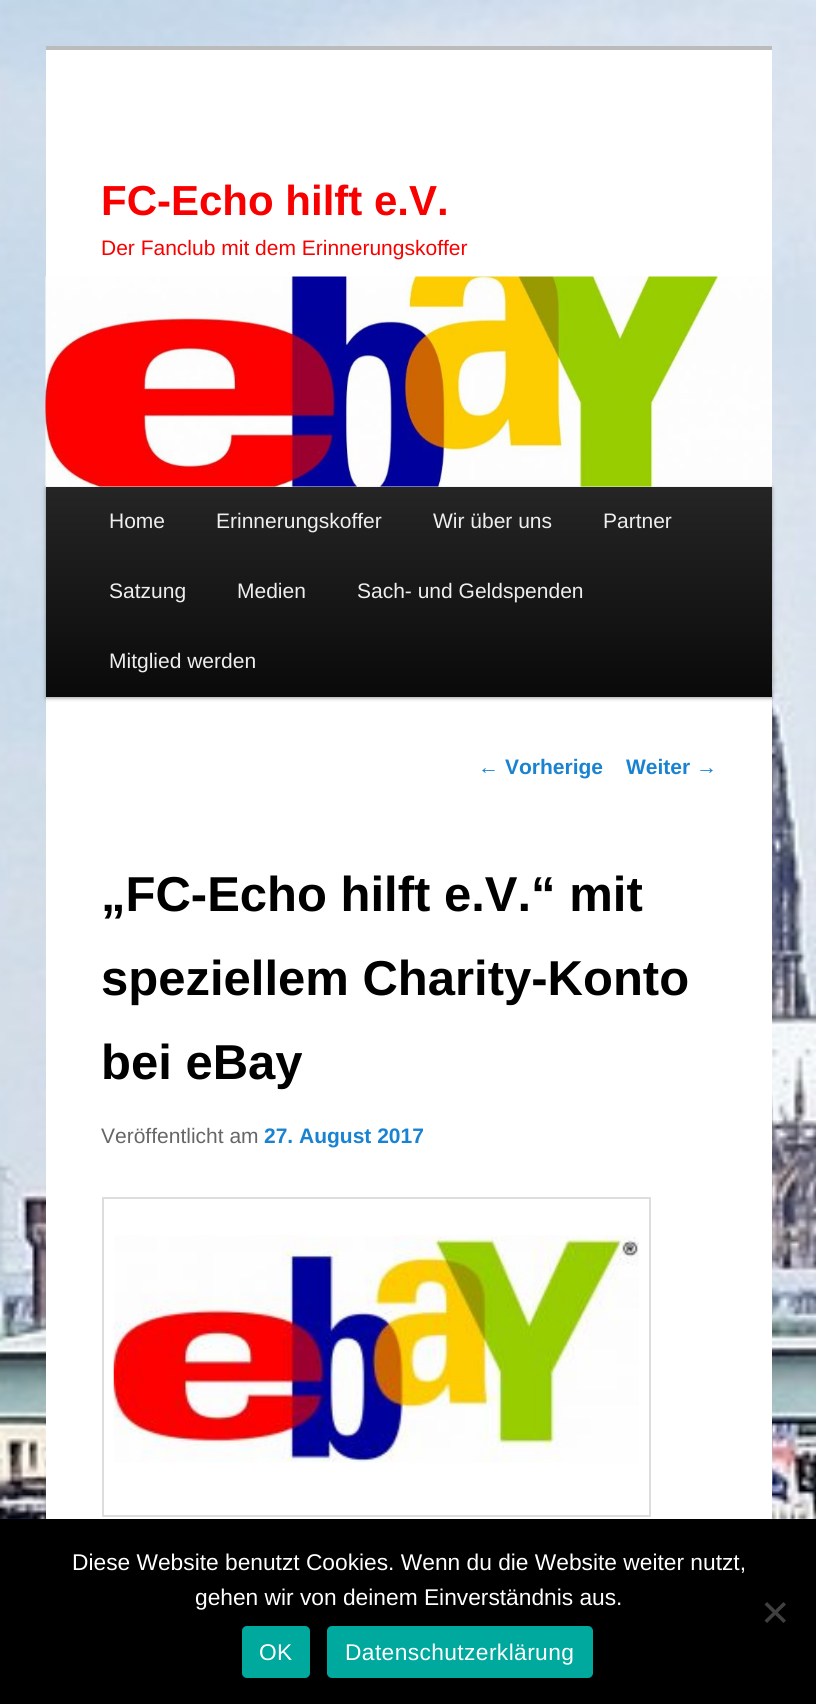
#include <cairo.h>
#include <math.h>
#include <stddef.h>

static cairo_t *ctx;

static void use_color(int r, int g, int b) {
    cairo_set_source_rgb(ctx, r / 255.0, g / 255.0, b / 255.0);
}

static void spaced_text(double x, double y, const char *s, double letter, double word) {
    cairo_move_to(ctx, x, y);
    while (*s) {
        char ch[5] = {0};
        int n = 0;
        do ch[n++] = *s++; while ((*s & 0xC0) == 0x80);
        cairo_show_text(ctx, ch);
        cairo_rel_move_to(ctx, letter + word * (*ch == ' '), 0);
    }
}

static void round_rect(double x, double y, double w, double h, double r) {
    cairo_new_sub_path(ctx);
    cairo_arc(ctx, x + w - r, y + h - r, r, 0, M_PI / 2);
    cairo_arc(ctx, x + r, y + h - r, r, M_PI / 2, M_PI);
    cairo_arc(ctx, x + r, y + r, r, M_PI, 1.5 * M_PI);
    cairo_arc(ctx, x + w - r, y + r, r, 1.5 * M_PI, 2 * M_PI);
    cairo_close_path(ctx);
}

static void shadow(double x, double y, double w, double h, double r, double blur, double alpha) {
    cairo_push_group_with_content(ctx, CAIRO_CONTENT_ALPHA);
    cairo_set_operator(ctx, CAIRO_OPERATOR_SOURCE);
    for (int i = 15; i >= -15 && fmin(w, h) + blur * i / 3 > 0; i -= 2) {
        double e = blur * i / 6;
        cairo_set_source_rgba(ctx, 0, 0, 0, alpha * erfc((i - 1) / 8.5) / 2);
        round_rect(x - e, y - e, w + 2 * e, h + 2 * e, fmax(0, fmin(r + e + blur * .6, fmin(w, h) / 2 + e)));
        cairo_fill(ctx);
    }
    cairo_pattern_t *soft = cairo_pop_group(ctx);
    cairo_mask(ctx, soft);
    cairo_pattern_destroy(soft);
}

static void picture(const char *path, double x, double y, double w, double h) {
    cairo_surface_t *image = cairo_image_surface_create_from_png(path);
    cairo_save(ctx);
    cairo_set_source_surface(ctx, image, x, y);
    cairo_rectangle(ctx, x, y, w, h);
    cairo_fill(ctx);
    cairo_restore(ctx);
    cairo_surface_destroy(image);
}

int main(void) {
    cairo_surface_t *surface = cairo_image_surface_create(CAIRO_FORMAT_RGB24, 816, 1704);
    ctx = cairo_create(surface);
    cairo_font_options_t *options = cairo_font_options_create();
    cairo_font_options_set_hint_metrics(options, CAIRO_HINT_METRICS_OFF);
    cairo_font_options_set_hint_style(options, CAIRO_HINT_STYLE_NONE);
    cairo_set_font_options(ctx, options);
    cairo_set_miter_limit(ctx, 4);
    cairo_pattern_t *gradient;
    use_color(255, 255, 255);
    cairo_paint(ctx);
    picture("img1.png", 0, 0, 816, 1519);
    use_color(255, 255, 255);
    cairo_rectangle(ctx, 46, 50, 726, 1469);
    cairo_fill(ctx);
    use_color(187, 187, 187);
    cairo_rectangle(ctx, 46, 46, 726, 4);
    cairo_fill(ctx);
    cairo_select_font_face(ctx, "Liberation Sans", CAIRO_FONT_SLANT_NORMAL, CAIRO_FONT_WEIGHT_BOLD);
    cairo_set_font_size(ctx, 42);
    use_color(249, 0, 0);
    cairo_move_to(ctx, 101, 215);
    cairo_show_text(ctx, "FC-Echo hilft e.V.");
    cairo_select_font_face(ctx, "Liberation Sans", CAIRO_FONT_SLANT_NORMAL, CAIRO_FONT_WEIGHT_NORMAL);
    cairo_set_font_size(ctx, 21);
    cairo_move_to(ctx, 101, 255);
    cairo_show_text(ctx, "Der Fanclub mit dem Erinnerungskoffer");
    use_color(0, 0, 0);
    shadow(46, 488, 726, 210, 0, 2, 0.4);
    picture("img2.png", 45, 276, 726, 211);
    gradient = cairo_pattern_create_linear(409, 487, 409, 697);
    cairo_pattern_add_color_stop_rgba(gradient, 0, 0.145, 0.145, 0.145, 1);
    cairo_pattern_add_color_stop_rgba(gradient, 1, 0.039, 0.039, 0.039, 1);
    cairo_set_source(ctx, gradient);
    cairo_pattern_destroy(gradient);
    cairo_rectangle(ctx, 46, 487, 726, 210);
    cairo_fill(ctx);
    use_color(238, 238, 238);
    cairo_move_to(ctx, 109, 528);
    cairo_show_text(ctx, "Home");
    cairo_move_to(ctx, 216, 528);
    cairo_show_text(ctx, "Erinnerungskoffer");
    cairo_move_to(ctx, 433, 528);
    cairo_show_text(ctx, "Wir über uns");
    cairo_move_to(ctx, 603, 528);
    cairo_show_text(ctx, "Partner");
    cairo_move_to(ctx, 109, 598);
    cairo_show_text(ctx, "Satzung");
    cairo_move_to(ctx, 237, 598);
    cairo_show_text(ctx, "Medien");
    cairo_move_to(ctx, 357, 598);
    cairo_show_text(ctx, "Sach- und Geldspenden");
    cairo_move_to(ctx, 109, 668);
    cairo_show_text(ctx, "Mitglied werden");
    use_color(25, 130, 209);
    cairo_move_to(ctx, 478, 774);
    cairo_show_text(ctx, "←");
    cairo_select_font_face(ctx, "Liberation Sans", CAIRO_FONT_SLANT_NORMAL, CAIRO_FONT_WEIGHT_BOLD);
    cairo_move_to(ctx, 505, 774);
    cairo_show_text(ctx, "Vorherige");
    cairo_move_to(ctx, 626, 774);
    cairo_show_text(ctx, "Weiter");
    cairo_select_font_face(ctx, "Liberation Sans", CAIRO_FONT_SLANT_NORMAL, CAIRO_FONT_WEIGHT_NORMAL);
    cairo_move_to(ctx, 696, 774);
    cairo_show_text(ctx, "→");
    cairo_select_font_face(ctx, "Liberation Sans", CAIRO_FONT_SLANT_NORMAL, CAIRO_FONT_WEIGHT_BOLD);
    cairo_set_font_size(ctx, 49);
    use_color(0, 0, 0);
    cairo_move_to(ctx, 101, 911);
    cairo_show_text(ctx, "„FC-Echo hilft e.V.“ mit");
    cairo_move_to(ctx, 101, 995);
    cairo_show_text(ctx, "speziellem Charity-Konto");
    cairo_move_to(ctx, 101, 1079);
    cairo_show_text(ctx, "bei eBay");
    cairo_select_font_face(ctx, "Liberation Sans", CAIRO_FONT_SLANT_NORMAL, CAIRO_FONT_WEIGHT_NORMAL);
    cairo_set_font_size(ctx, 21);
    use_color(102, 102, 102);
    cairo_move_to(ctx, 101, 1143);
    cairo_show_text(ctx, "Veröffentlicht am");
    cairo_select_font_face(ctx, "Liberation Sans", CAIRO_FONT_SLANT_NORMAL, CAIRO_FONT_WEIGHT_BOLD);
    use_color(25, 130, 209);
    cairo_move_to(ctx, 264, 1143);
    cairo_show_text(ctx, "27. August 2017");
    cairo_rectangle(ctx, 103, 1198, 547, 318);
    use_color(221, 221, 221);
    cairo_stroke(ctx);
    picture("img3.png", 113, 1235, 526, 228);
    use_color(0, 0, 0);
    cairo_rectangle(ctx, 0, 1519, 816, 185);
    cairo_fill(ctx);
    cairo_select_font_face(ctx, "Liberation Sans", CAIRO_FONT_SLANT_NORMAL, CAIRO_FONT_WEIGHT_NORMAL);
    cairo_set_font_size(ctx, 22.75);
    use_color(255, 255, 255);
    cairo_move_to(ctx, 72, 1570);
    cairo_show_text(ctx, "Diese Website benutzt Cookies. Wenn du die Website weiter nutzt,");
    cairo_move_to(ctx, 195, 1605);
    cairo_show_text(ctx, "gehen wir von deinem Einverständnis aus.");
    use_color(64, 64, 64);
    cairo_new_path(ctx);
    cairo_move_to(ctx, 783.5, 1602);
    cairo_line_to(ctx, 786, 1604.5);
    cairo_line_to(ctx, 767, 1623);
    cairo_line_to(ctx, 764.5, 1620.5);
    cairo_close_path(ctx);
    cairo_fill(ctx);
    cairo_new_path(ctx);
    cairo_move_to(ctx, 764.5, 1604.5);
    cairo_line_to(ctx, 767, 1602);
    cairo_line_to(ctx, 786, 1620.5);
    cairo_line_to(ctx, 783.5, 1623);
    cairo_close_path(ctx);
    cairo_fill(ctx);
    use_color(0, 169, 157);
    round_rect(242, 1626, 68, 52, 5);
    cairo_fill(ctx);
    use_color(255, 255, 255);
    spaced_text(259, 1660, "OK", 0.4, 0);
    use_color(0, 169, 157);
    round_rect(327, 1626, 266, 52, 5);
    cairo_fill(ctx);
    use_color(255, 255, 255);
    spaced_text(345, 1660, "Datenschutzerklärung", 0.4, 0);
    cairo_surface_write_to_png(surface, "result.png");
    cairo_font_options_destroy(options);
    cairo_destroy(ctx);
    cairo_surface_destroy(surface);
    return 0;
}
